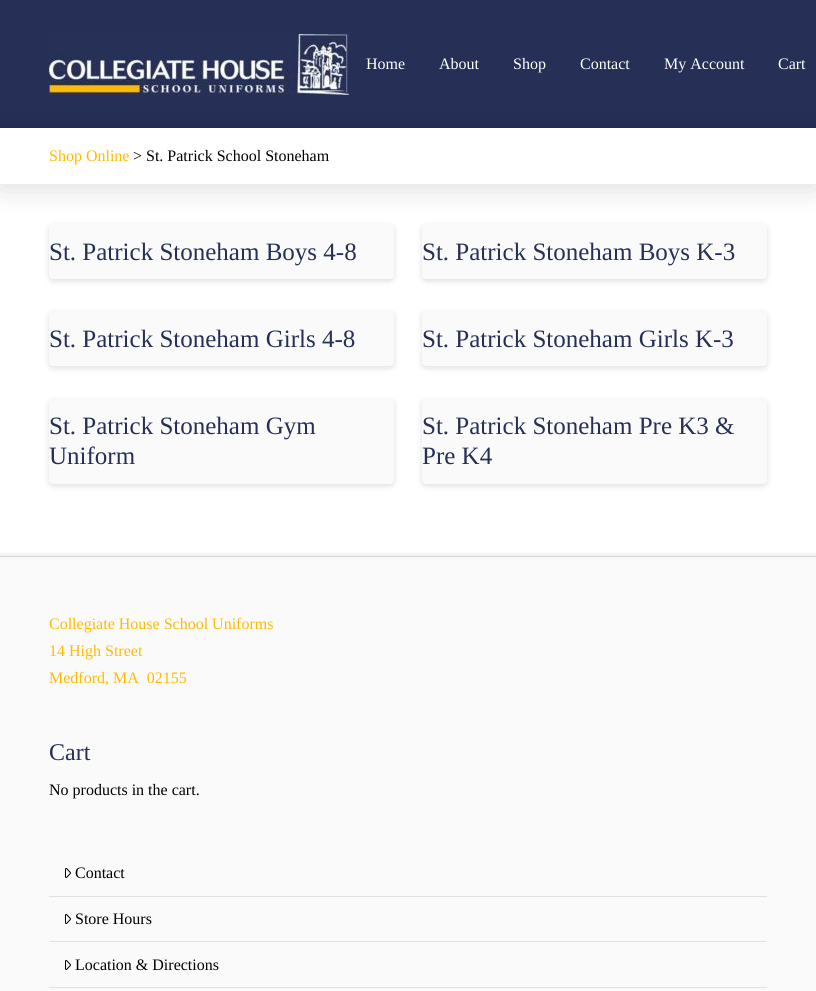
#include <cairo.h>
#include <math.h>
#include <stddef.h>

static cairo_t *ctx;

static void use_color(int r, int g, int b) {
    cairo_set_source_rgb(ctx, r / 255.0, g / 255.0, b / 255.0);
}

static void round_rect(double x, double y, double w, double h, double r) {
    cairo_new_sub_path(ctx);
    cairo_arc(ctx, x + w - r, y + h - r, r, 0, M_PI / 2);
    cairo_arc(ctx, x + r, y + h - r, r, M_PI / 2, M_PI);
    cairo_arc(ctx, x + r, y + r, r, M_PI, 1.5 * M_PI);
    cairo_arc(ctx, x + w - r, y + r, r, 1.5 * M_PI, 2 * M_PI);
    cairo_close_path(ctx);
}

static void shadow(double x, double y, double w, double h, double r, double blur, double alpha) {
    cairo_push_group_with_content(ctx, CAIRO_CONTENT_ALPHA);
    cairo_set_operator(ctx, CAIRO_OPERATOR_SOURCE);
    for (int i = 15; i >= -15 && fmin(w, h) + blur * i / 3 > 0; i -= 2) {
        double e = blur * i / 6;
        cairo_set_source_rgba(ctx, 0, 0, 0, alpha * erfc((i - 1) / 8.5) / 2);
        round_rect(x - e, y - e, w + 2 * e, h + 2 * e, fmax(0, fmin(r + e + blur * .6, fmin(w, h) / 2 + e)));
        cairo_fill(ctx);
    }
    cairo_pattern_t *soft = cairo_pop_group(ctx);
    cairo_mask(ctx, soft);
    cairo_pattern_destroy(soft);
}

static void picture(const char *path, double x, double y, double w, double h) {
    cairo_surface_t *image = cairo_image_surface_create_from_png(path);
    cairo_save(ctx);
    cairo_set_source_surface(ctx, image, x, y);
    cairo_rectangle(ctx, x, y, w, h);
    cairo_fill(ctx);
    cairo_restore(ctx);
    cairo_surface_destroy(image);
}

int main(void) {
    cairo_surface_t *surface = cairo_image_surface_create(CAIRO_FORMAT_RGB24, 816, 991);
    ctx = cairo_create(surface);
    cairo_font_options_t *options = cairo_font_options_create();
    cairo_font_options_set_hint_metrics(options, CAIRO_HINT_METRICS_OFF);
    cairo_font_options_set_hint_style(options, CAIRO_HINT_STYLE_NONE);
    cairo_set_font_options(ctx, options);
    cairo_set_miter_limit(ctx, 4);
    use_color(255, 255, 255);
    cairo_paint(ctx);
    use_color(38, 48, 87);
    cairo_rectangle(ctx, 0, 0, 816, 128);
    cairo_fill(ctx);
    picture("img1.png", 49, 34, 300, 61);
    cairo_select_font_face(ctx, "Liberation Serif", CAIRO_FONT_SLANT_NORMAL, CAIRO_FONT_WEIGHT_NORMAL);
    cairo_set_font_size(ctx, 16);
    use_color(255, 255, 255);
    cairo_move_to(ctx, 366, 69);
    cairo_show_text(ctx, "Home");
    cairo_move_to(ctx, 439, 69);
    cairo_show_text(ctx, "About");
    cairo_move_to(ctx, 513, 69);
    cairo_show_text(ctx, "Shop");
    cairo_move_to(ctx, 580, 69);
    cairo_show_text(ctx, "Contact");
    cairo_move_to(ctx, 664, 69);
    cairo_show_text(ctx, "My Account");
    cairo_move_to(ctx, 778, 69);
    cairo_show_text(ctx, "Cart");
    use_color(0, 0, 0);
    shadow(49, 226, 345, 55, 4, 3, 0.13);
    use_color(250, 250, 250);
    round_rect(49, 224, 345, 55, 4);
    cairo_fill(ctx);
    use_color(0, 0, 0);
    shadow(422, 226, 345, 55, 4, 3, 0.13);
    use_color(250, 250, 250);
    round_rect(422, 224, 345, 55, 4);
    cairo_fill(ctx);
    use_color(0, 0, 0);
    shadow(0, 130, 816, 56, 0, 16, 0.15);
    use_color(255, 255, 255);
    cairo_rectangle(ctx, 0, 128, 816, 56);
    cairo_fill(ctx);
    use_color(255, 186, 0);
    cairo_move_to(ctx, 49, 161);
    cairo_show_text(ctx, "Shop Online");
    use_color(0, 0, 0);
    cairo_move_to(ctx, 133, 161);
    cairo_show_text(ctx, "> St. Patrick School Stoneham");
    cairo_set_font_size(ctx, 25);
    use_color(38, 48, 87);
    cairo_move_to(ctx, 49, 260);
    cairo_show_text(ctx, "St. Patrick Stoneham Boys 4-8");
    cairo_move_to(ctx, 422, 260);
    cairo_show_text(ctx, "St. Patrick Stoneham Boys K-3");
    use_color(0, 0, 0);
    shadow(49, 313, 345, 55, 4, 3, 0.13);
    use_color(250, 250, 250);
    round_rect(49, 311, 345, 55, 4);
    cairo_fill(ctx);
    use_color(38, 48, 87);
    cairo_move_to(ctx, 49, 347);
    cairo_show_text(ctx, "St. Patrick Stoneham Girls 4-8");
    use_color(0, 0, 0);
    shadow(422, 313, 345, 55, 4, 3, 0.13);
    use_color(250, 250, 250);
    round_rect(422, 311, 345, 55, 4);
    cairo_fill(ctx);
    use_color(38, 48, 87);
    cairo_move_to(ctx, 422, 347);
    cairo_show_text(ctx, "St. Patrick Stoneham Girls K-3");
    use_color(0, 0, 0);
    shadow(49, 401, 345, 85, 4, 3, 0.13);
    use_color(250, 250, 250);
    round_rect(49, 399, 345, 85, 4);
    cairo_fill(ctx);
    use_color(38, 48, 87);
    cairo_move_to(ctx, 49, 434);
    cairo_show_text(ctx, "St. Patrick Stoneham Gym");
    cairo_move_to(ctx, 49, 464);
    cairo_show_text(ctx, "Uniform");
    use_color(0, 0, 0);
    shadow(422, 401, 345, 85, 4, 3, 0.13);
    use_color(250, 250, 250);
    round_rect(422, 399, 345, 85, 4);
    cairo_fill(ctx);
    use_color(38, 48, 87);
    cairo_move_to(ctx, 422, 434);
    cairo_show_text(ctx, "St. Patrick Stoneham Pre K3 &");
    cairo_move_to(ctx, 422, 464);
    cairo_show_text(ctx, "Pre K4");
    use_color(0, 0, 0);
    shadow(0, 554, 816, 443, 0, 2, 0.07);
    use_color(250, 250, 250);
    cairo_rectangle(ctx, 0, 557, 816, 434);
    cairo_fill(ctx);
    use_color(212, 212, 212);
    cairo_rectangle(ctx, 0, 556, 816, 1);
    cairo_fill(ctx);
    cairo_set_font_size(ctx, 16);
    use_color(255, 186, 0);
    cairo_move_to(ctx, 49, 629);
    cairo_show_text(ctx, "Collegiate House School Uniforms");
    cairo_move_to(ctx, 49, 656);
    cairo_show_text(ctx, "14 High Street");
    cairo_move_to(ctx, 49, 683);
    cairo_show_text(ctx, "Medford, MA  02155");
    cairo_set_font_size(ctx, 24);
    use_color(38, 48, 87);
    cairo_move_to(ctx, 49, 760);
    cairo_show_text(ctx, "Cart");
    cairo_set_font_size(ctx, 16);
    use_color(0, 0, 0);
    cairo_move_to(ctx, 49, 795);
    cairo_show_text(ctx, "No products in the cart.");
    use_color(225, 225, 225);
    cairo_rectangle(ctx, 49, 896, 718, 1);
    cairo_fill(ctx);
    picture("img2.png", 65, 868, 6, 10);
    use_color(0, 0, 0);
    cairo_move_to(ctx, 75, 878);
    cairo_show_text(ctx, "Contact");
    use_color(225, 225, 225);
    cairo_rectangle(ctx, 49, 941, 718, 1);
    cairo_fill(ctx);
    picture("img2.png", 65, 914, 6, 10);
    use_color(0, 0, 0);
    cairo_move_to(ctx, 75, 924);
    cairo_show_text(ctx, "Store Hours");
    use_color(225, 225, 225);
    cairo_rectangle(ctx, 49, 987, 718, 1);
    cairo_fill(ctx);
    picture("img2.png", 65, 960, 6, 10);
    use_color(0, 0, 0);
    cairo_move_to(ctx, 75, 970);
    cairo_show_text(ctx, "Location & Directions");
    cairo_surface_write_to_png(surface, "result.png");
    cairo_font_options_destroy(options);
    cairo_destroy(ctx);
    cairo_surface_destroy(surface);
    return 0;
}
